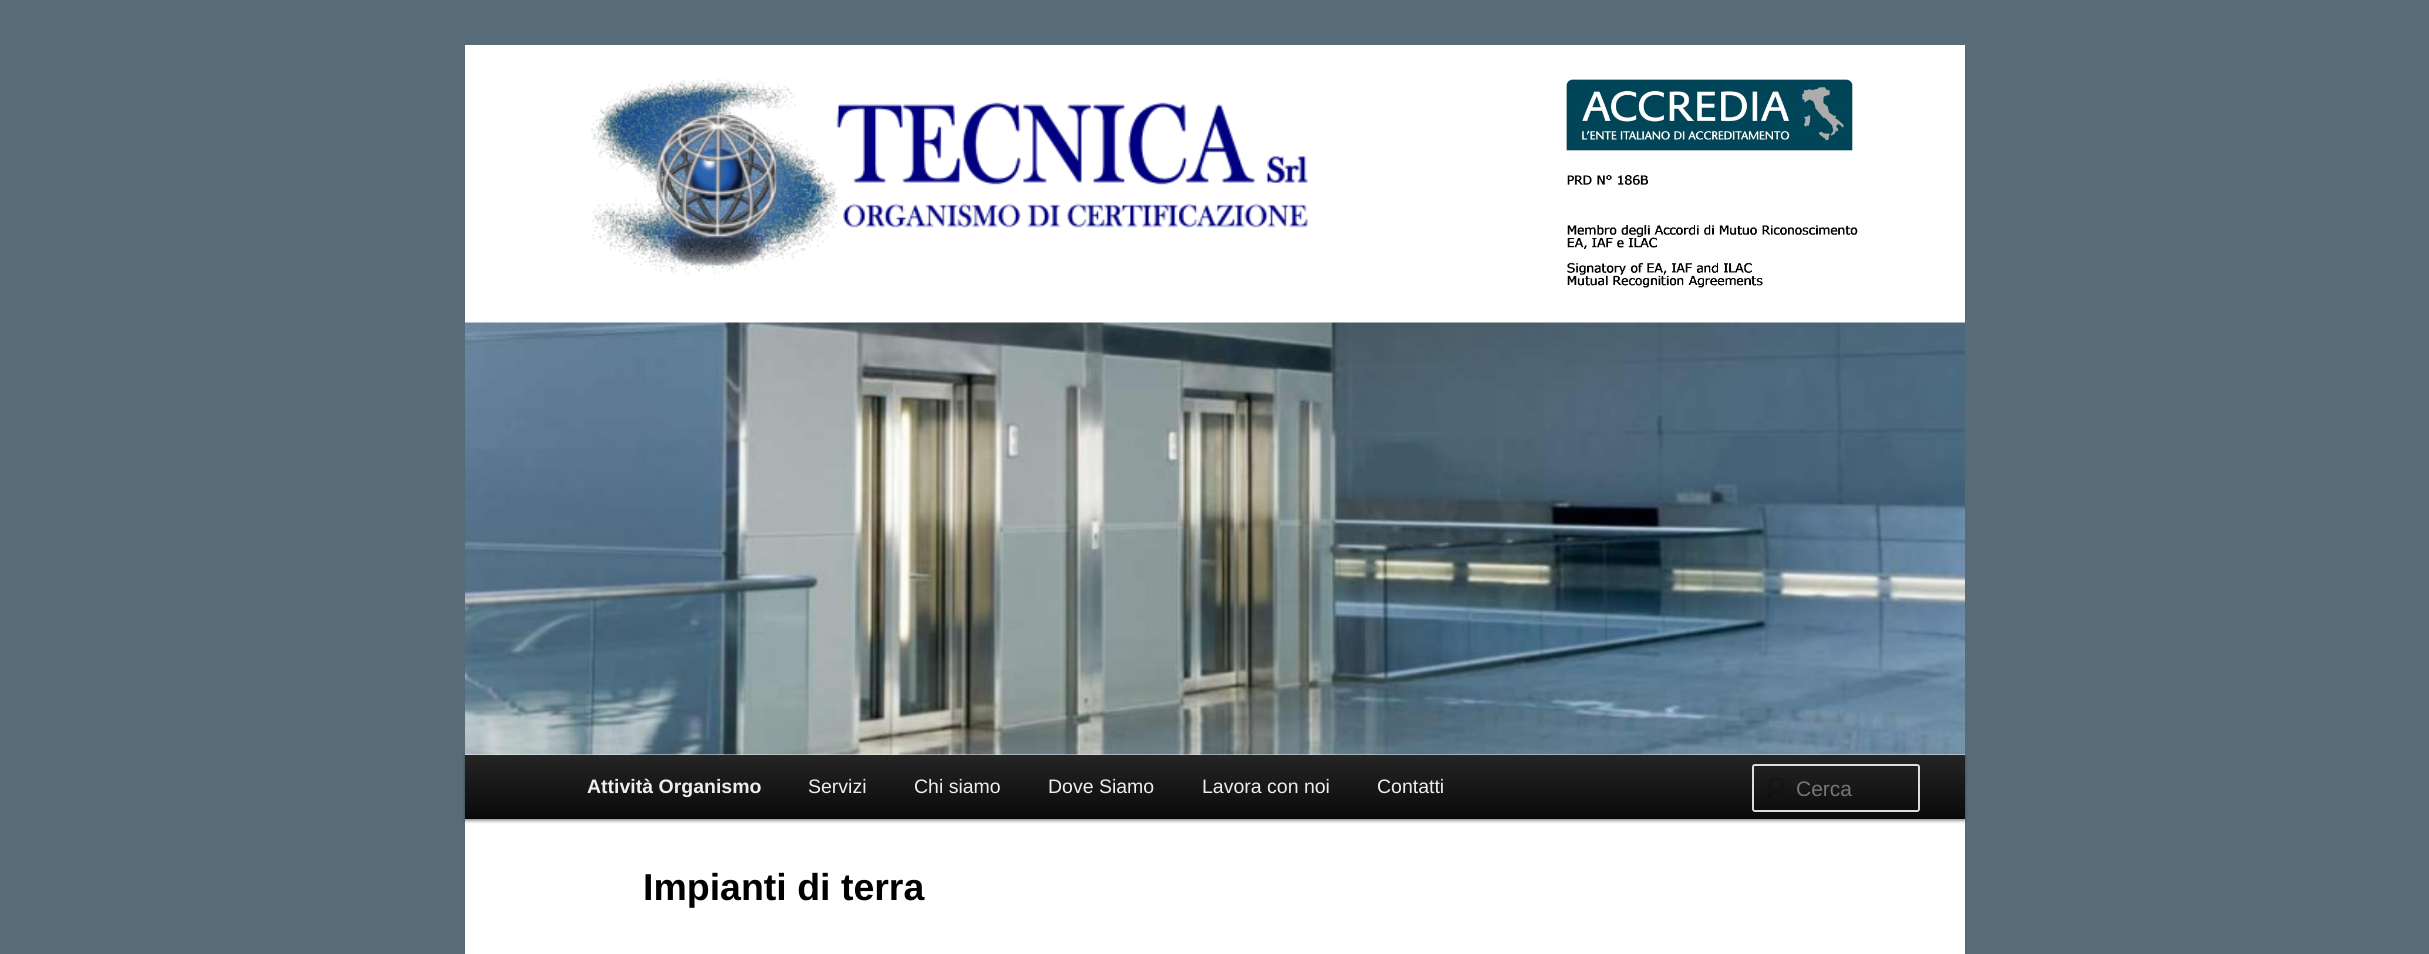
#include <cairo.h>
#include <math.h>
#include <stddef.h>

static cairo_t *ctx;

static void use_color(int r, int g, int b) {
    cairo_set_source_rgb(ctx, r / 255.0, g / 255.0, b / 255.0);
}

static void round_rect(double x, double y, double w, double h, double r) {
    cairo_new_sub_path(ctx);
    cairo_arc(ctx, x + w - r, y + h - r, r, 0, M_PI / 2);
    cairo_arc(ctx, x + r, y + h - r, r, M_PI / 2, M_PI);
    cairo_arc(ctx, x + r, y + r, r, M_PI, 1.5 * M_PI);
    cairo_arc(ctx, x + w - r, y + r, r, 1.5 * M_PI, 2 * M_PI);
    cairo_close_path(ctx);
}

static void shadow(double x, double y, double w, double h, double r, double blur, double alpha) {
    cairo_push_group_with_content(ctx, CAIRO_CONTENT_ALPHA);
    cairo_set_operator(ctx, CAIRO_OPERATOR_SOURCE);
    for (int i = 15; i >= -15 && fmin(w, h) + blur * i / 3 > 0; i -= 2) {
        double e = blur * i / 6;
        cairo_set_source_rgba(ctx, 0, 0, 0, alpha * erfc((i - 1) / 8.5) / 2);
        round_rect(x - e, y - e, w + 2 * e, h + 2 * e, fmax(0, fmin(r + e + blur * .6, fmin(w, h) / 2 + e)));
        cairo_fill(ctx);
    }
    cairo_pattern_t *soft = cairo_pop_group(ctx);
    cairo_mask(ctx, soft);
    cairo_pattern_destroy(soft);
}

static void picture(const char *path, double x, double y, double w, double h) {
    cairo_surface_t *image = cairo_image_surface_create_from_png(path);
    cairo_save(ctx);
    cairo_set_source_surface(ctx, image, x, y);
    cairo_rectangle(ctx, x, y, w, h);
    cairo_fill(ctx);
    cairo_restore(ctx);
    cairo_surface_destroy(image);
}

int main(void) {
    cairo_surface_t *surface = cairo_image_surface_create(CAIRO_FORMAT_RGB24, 2429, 954);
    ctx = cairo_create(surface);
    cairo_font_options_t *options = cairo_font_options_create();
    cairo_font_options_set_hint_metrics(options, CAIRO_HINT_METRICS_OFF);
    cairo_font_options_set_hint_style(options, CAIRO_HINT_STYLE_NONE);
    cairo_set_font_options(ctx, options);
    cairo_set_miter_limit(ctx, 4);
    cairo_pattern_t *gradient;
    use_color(88, 108, 119);
    cairo_paint(ctx);
    use_color(255, 255, 255);
    cairo_rectangle(ctx, 465, 45, 1500, 909);
    cairo_fill(ctx);
    picture("img1.png", 591, 78, 717, 197);
    picture("img2.png", 1566, 79, 292, 209);
    use_color(0, 0, 0);
    shadow(465, 756, 1500, 65, 0, 1.5, 0.4);
    picture("img3.png", 465, 322, 1500, 433);
    gradient = cairo_pattern_create_linear(1215, 754, 1215, 819);
    cairo_pattern_add_color_stop_rgba(gradient, 0, 0.145, 0.145, 0.145, 1);
    cairo_pattern_add_color_stop_rgba(gradient, 1, 0.039, 0.039, 0.039, 1);
    cairo_set_source(ctx, gradient);
    cairo_pattern_destroy(gradient);
    cairo_rectangle(ctx, 465, 755, 1500, 64);
    cairo_fill(ctx);
    cairo_select_font_face(ctx, "Liberation Sans", CAIRO_FONT_SLANT_NORMAL, CAIRO_FONT_WEIGHT_BOLD);
    cairo_set_font_size(ctx, 19.5);
    use_color(238, 238, 238);
    cairo_move_to(ctx, 587, 793);
    cairo_show_text(ctx, "Attività Organismo");
    cairo_select_font_face(ctx, "Liberation Sans", CAIRO_FONT_SLANT_NORMAL, CAIRO_FONT_WEIGHT_NORMAL);
    cairo_move_to(ctx, 808, 793);
    cairo_show_text(ctx, "Servizi");
    cairo_move_to(ctx, 914, 793);
    cairo_show_text(ctx, "Chi siamo");
    cairo_move_to(ctx, 1048, 793);
    cairo_show_text(ctx, "Dove Siamo");
    cairo_move_to(ctx, 1202, 793);
    cairo_show_text(ctx, "Lavora con noi");
    cairo_move_to(ctx, 1377, 793);
    cairo_show_text(ctx, "Contatti");
    picture("img4.png", 1768, 777, 17, 21);
    round_rect(1753, 765, 166, 46, 2);
    use_color(221, 221, 221);
    cairo_stroke(ctx);
    cairo_set_font_size(ctx, 21);
    use_color(117, 117, 117);
    cairo_move_to(ctx, 1796, 796);
    cairo_show_text(ctx, "Cerca");
    cairo_select_font_face(ctx, "Liberation Sans", CAIRO_FONT_SLANT_NORMAL, CAIRO_FONT_WEIGHT_BOLD);
    cairo_set_font_size(ctx, 37.5);
    use_color(0, 0, 0);
    cairo_move_to(ctx, 643, 900);
    cairo_show_text(ctx, "Impianti di terra");
    cairo_surface_write_to_png(surface, "result.png");
    cairo_font_options_destroy(options);
    cairo_destroy(ctx);
    cairo_surface_destroy(surface);
    return 0;
}
